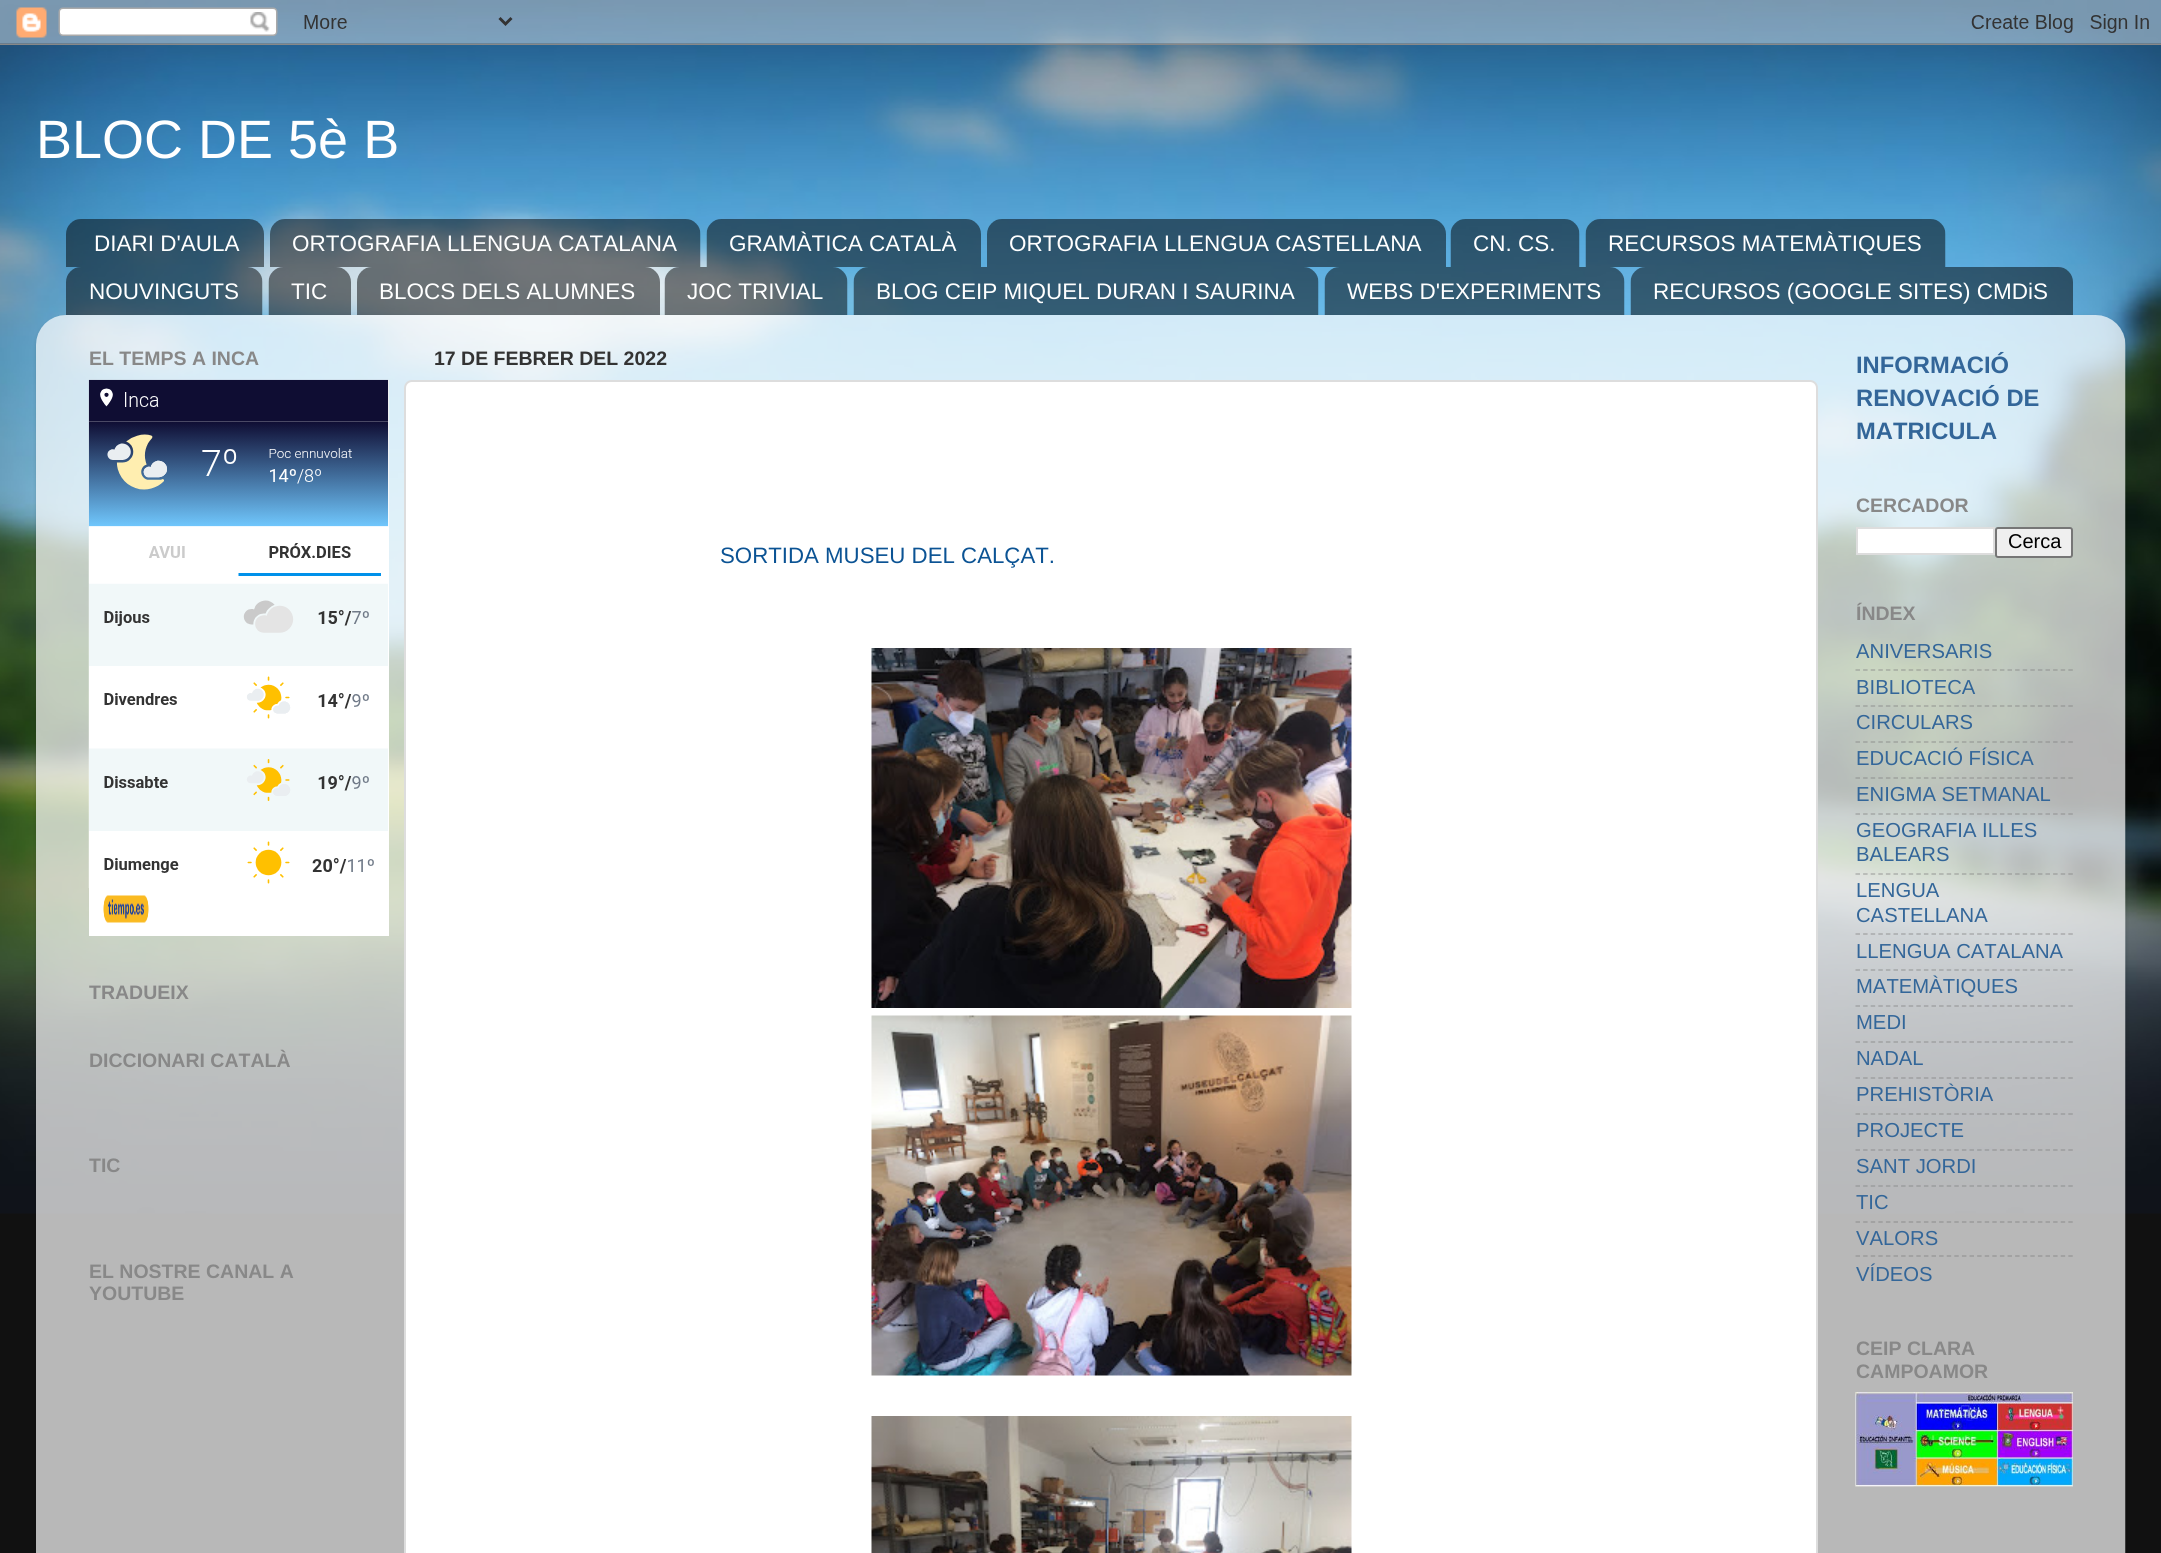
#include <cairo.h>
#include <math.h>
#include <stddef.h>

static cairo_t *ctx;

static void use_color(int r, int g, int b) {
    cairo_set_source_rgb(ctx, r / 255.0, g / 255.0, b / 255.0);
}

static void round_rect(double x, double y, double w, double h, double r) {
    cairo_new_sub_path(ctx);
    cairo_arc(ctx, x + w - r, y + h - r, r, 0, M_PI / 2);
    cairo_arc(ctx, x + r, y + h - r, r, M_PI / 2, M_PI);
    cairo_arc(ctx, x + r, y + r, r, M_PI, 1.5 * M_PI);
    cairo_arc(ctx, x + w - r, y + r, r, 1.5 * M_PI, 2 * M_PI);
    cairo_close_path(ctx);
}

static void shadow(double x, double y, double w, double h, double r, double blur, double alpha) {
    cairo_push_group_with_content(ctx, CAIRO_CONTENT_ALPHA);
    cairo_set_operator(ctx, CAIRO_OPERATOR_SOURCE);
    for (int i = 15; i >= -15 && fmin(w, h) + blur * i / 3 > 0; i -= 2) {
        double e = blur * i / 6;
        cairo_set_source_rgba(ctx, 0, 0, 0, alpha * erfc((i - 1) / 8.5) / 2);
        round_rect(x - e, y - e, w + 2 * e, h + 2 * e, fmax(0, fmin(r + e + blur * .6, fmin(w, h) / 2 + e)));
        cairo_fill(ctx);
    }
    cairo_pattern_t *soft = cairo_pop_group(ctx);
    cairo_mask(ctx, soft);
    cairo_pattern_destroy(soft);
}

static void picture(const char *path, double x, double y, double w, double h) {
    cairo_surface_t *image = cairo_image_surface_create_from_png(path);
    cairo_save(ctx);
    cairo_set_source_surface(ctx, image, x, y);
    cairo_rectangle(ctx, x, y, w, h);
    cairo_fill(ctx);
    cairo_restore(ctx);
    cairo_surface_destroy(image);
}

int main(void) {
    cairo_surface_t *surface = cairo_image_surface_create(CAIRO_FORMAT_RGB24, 2161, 1553);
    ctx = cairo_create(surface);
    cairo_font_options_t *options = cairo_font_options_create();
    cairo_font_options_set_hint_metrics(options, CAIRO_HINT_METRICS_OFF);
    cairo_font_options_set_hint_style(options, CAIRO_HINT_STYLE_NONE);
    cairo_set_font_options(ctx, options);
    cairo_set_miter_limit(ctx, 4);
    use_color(17, 17, 17);
    cairo_paint(ctx);
    picture("img1.png", 0, 0, 2161, 1214);
    picture("img2.png", 0, 0, 2161, 45);
    cairo_select_font_face(ctx, "Liberation Sans", CAIRO_FONT_SLANT_NORMAL, CAIRO_FONT_WEIGHT_NORMAL);
    cairo_set_font_size(ctx, 54);
    use_color(255, 255, 255);
    cairo_move_to(ctx, 36, 158);
    cairo_show_text(ctx, "BLOC DE 5è B");
    picture("img3.png", 66, 219, 198, 48);
    cairo_set_font_size(ctx, 22.5);
    cairo_move_to(ctx, 94, 251);
    cairo_show_text(ctx, "DIARI D'AULA");
    picture("img4.png", 270, 219, 431, 48);
    cairo_move_to(ctx, 292, 251);
    cairo_show_text(ctx, "ORTOGRAFIA LLENGUA CATALANA");
    picture("img5.png", 706, 219, 275, 48);
    cairo_move_to(ctx, 729, 251);
    cairo_show_text(ctx, "GRAMÀTICA CATALÀ");
    picture("img6.png", 987, 219, 459, 48);
    cairo_move_to(ctx, 1009, 251);
    cairo_show_text(ctx, "ORTOGRAFIA LLENGUA CASTELLANA");
    picture("img7.png", 1450, 219, 130, 48);
    cairo_move_to(ctx, 1473, 251);
    cairo_show_text(ctx, "CN. CS.");
    picture("img8.png", 1585, 219, 361, 48);
    cairo_move_to(ctx, 1608, 251);
    cairo_show_text(ctx, "RECURSOS MATEMÀTIQUES");
    picture("img9.png", 66, 267, 197, 48);
    cairo_move_to(ctx, 89, 299);
    cairo_show_text(ctx, "NOUVINGUTS");
    picture("img10.png", 268, 267, 83, 48);
    cairo_move_to(ctx, 291, 299);
    cairo_show_text(ctx, "TIC");
    picture("img11.png", 357, 267, 303, 48);
    cairo_move_to(ctx, 379, 299);
    cairo_show_text(ctx, "BLOCS DELS ALUMNES");
    picture("img12.png", 664, 267, 184, 48);
    cairo_move_to(ctx, 687, 299);
    cairo_show_text(ctx, "JOC TRIVIAL");
    picture("img13.png", 853, 267, 466, 48);
    cairo_move_to(ctx, 876, 299);
    cairo_show_text(ctx, "BLOG CEIP MIQUEL DURAN I SAURINA");
    picture("img14.png", 1324, 267, 301, 48);
    cairo_move_to(ctx, 1347, 299);
    cairo_show_text(ctx, "WEBS D'EXPERIMENTS");
    picture("img15.png", 1630, 267, 443, 48);
    cairo_move_to(ctx, 1653, 299);
    cairo_show_text(ctx, "RECURSOS (GOOGLE SITES) CMDiS");
    cairo_save(ctx);
    cairo_set_fill_rule(ctx, CAIRO_FILL_RULE_EVEN_ODD);
    cairo_new_path(ctx);
    cairo_move_to(ctx, 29, 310);
    cairo_line_to(ctx, 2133, 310);
    cairo_line_to(ctx, 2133, 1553);
    cairo_line_to(ctx, 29, 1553);
    cairo_close_path(ctx);
    cairo_move_to(ctx, 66, 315);
    cairo_line_to(ctx, 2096, 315);
    cairo_curve_to(ctx, 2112.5, 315, 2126, 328.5, 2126, 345);
    cairo_line_to(ctx, 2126, 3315);
    cairo_line_to(ctx, 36, 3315);
    cairo_line_to(ctx, 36, 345);
    cairo_curve_to(ctx, 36, 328.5, 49.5, 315, 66, 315);
    cairo_close_path(ctx);
    cairo_clip(ctx);
    use_color(0, 0, 0);
    shadow(36, 317, 2090, 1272, 30, 2, 0.15);
    cairo_restore(ctx);
    picture("img16.png", 36, 315, 2090, 1238);
    cairo_select_font_face(ctx, "Liberation Sans", CAIRO_FONT_SLANT_NORMAL, CAIRO_FONT_WEIGHT_BOLD);
    cairo_set_font_size(ctx, 19.5);
    use_color(136, 136, 136);
    cairo_move_to(ctx, 89, 365);
    cairo_show_text(ctx, "EL TEMPS A INCA");
    use_color(255, 255, 255);
    cairo_rectangle(ctx, 89, 380, 300, 556);
    cairo_fill(ctx);
    picture("img17.png", 88, 379, 301, 509);
    picture("img18.png", 103, 895, 46, 28);
    use_color(136, 136, 136);
    cairo_move_to(ctx, 89, 999);
    cairo_show_text(ctx, "TRADUEIX");
    cairo_move_to(ctx, 89, 1067);
    cairo_show_text(ctx, "DICCIONARI CATALÀ");
    cairo_move_to(ctx, 89, 1172);
    cairo_show_text(ctx, "TIC");
    cairo_move_to(ctx, 89, 1278);
    cairo_show_text(ctx, "EL NOSTRE CANAL A");
    cairo_move_to(ctx, 89, 1300);
    cairo_show_text(ctx, "YOUTUBE");
    use_color(51, 51, 51);
    cairo_move_to(ctx, 434, 365);
    cairo_show_text(ctx, "17 DE FEBRER DEL 2022");
    use_color(255, 255, 255);
    round_rect(405, 381, 1412, 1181, 7);
    cairo_fill_preserve(ctx);
    use_color(221, 221, 221);
    cairo_stroke(ctx);
    cairo_select_font_face(ctx, "Liberation Sans", CAIRO_FONT_SLANT_NORMAL, CAIRO_FONT_WEIGHT_NORMAL);
    cairo_set_font_size(ctx, 22.25);
    use_color(11, 83, 148);
    cairo_move_to(ctx, 720, 563);
    cairo_show_text(ctx, "SORTIDA MUSEU DEL CALÇAT.");
    picture("img19.png", 871, 648, 481, 360);
    picture("img20.png", 871, 1015, 481, 361);
    picture("img21.png", 871, 1416, 481, 137);
    cairo_select_font_face(ctx, "Liberation Sans", CAIRO_FONT_SLANT_NORMAL, CAIRO_FONT_WEIGHT_BOLD);
    cairo_set_font_size(ctx, 23.75);
    use_color(51, 102, 153);
    cairo_move_to(ctx, 1856, 373);
    cairo_show_text(ctx, "INFORMACIÓ");
    cairo_move_to(ctx, 1856, 406);
    cairo_show_text(ctx, "RENOVACIÓ DE");
    cairo_move_to(ctx, 1856, 439);
    cairo_show_text(ctx, "MATRICULA");
    cairo_set_font_size(ctx, 19.5);
    use_color(136, 136, 136);
    cairo_move_to(ctx, 1856, 512);
    cairo_show_text(ctx, "CERCADOR");
    use_color(255, 255, 255);
    cairo_rectangle(ctx, 1857, 528, 137, 26);
    cairo_fill_preserve(ctx);
    use_color(221, 221, 221);
    cairo_stroke(ctx);
    use_color(239, 239, 239);
    round_rect(1996, 528, 76, 29, 2);
    cairo_fill_preserve(ctx);
    use_color(118, 118, 118);
    cairo_stroke(ctx);
    cairo_select_font_face(ctx, "Liberation Sans", CAIRO_FONT_SLANT_NORMAL, CAIRO_FONT_WEIGHT_NORMAL);
    cairo_set_font_size(ctx, 20);
    use_color(0, 0, 0);
    cairo_move_to(ctx, 2008, 548);
    cairo_show_text(ctx, "Cerca");
    cairo_select_font_face(ctx, "Liberation Sans", CAIRO_FONT_SLANT_NORMAL, CAIRO_FONT_WEIGHT_BOLD);
    cairo_set_font_size(ctx, 19.5);
    use_color(136, 136, 136);
    cairo_move_to(ctx, 1856, 620);
    cairo_show_text(ctx, "ÍNDEX");
    cairo_select_font_face(ctx, "Liberation Sans", CAIRO_FONT_SLANT_NORMAL, CAIRO_FONT_WEIGHT_NORMAL);
    cairo_set_font_size(ctx, 20.25);
    use_color(51, 102, 153);
    cairo_move_to(ctx, 1856, 658);
    cairo_show_text(ctx, "ANIVERSARIS");
    cairo_new_path(ctx);
    cairo_move_to(ctx, 1855.5, 670);
    cairo_line_to(ctx, 2073, 670);
    cairo_set_source_rgba(ctx, 0.502, 0.502, 0.502, 0.5);
    cairo_set_line_width(ctx, 1.5);
    cairo_set_dash(ctx, (double[]){4.5, 3.1}, 2, 0);
    cairo_stroke(ctx);
    use_color(51, 102, 153);
    cairo_move_to(ctx, 1856, 694);
    cairo_show_text(ctx, "BIBLIOTECA");
    cairo_new_path(ctx);
    cairo_move_to(ctx, 1855.5, 706);
    cairo_line_to(ctx, 2073, 706);
    cairo_set_source_rgba(ctx, 0.502, 0.502, 0.502, 0.5);
    cairo_stroke(ctx);
    use_color(51, 102, 153);
    cairo_move_to(ctx, 1856, 729);
    cairo_show_text(ctx, "CIRCULARS");
    cairo_new_path(ctx);
    cairo_move_to(ctx, 1855.5, 742);
    cairo_line_to(ctx, 2073, 742);
    cairo_set_source_rgba(ctx, 0.502, 0.502, 0.502, 0.5);
    cairo_stroke(ctx);
    use_color(51, 102, 153);
    cairo_move_to(ctx, 1856, 765);
    cairo_show_text(ctx, "EDUCACIÓ FÍSICA");
    cairo_new_path(ctx);
    cairo_move_to(ctx, 1855.5, 778);
    cairo_line_to(ctx, 2073, 778);
    cairo_set_source_rgba(ctx, 0.502, 0.502, 0.502, 0.5);
    cairo_stroke(ctx);
    use_color(51, 102, 153);
    cairo_move_to(ctx, 1856, 801);
    cairo_show_text(ctx, "ENIGMA SETMANAL");
    cairo_new_path(ctx);
    cairo_move_to(ctx, 1855.5, 814);
    cairo_line_to(ctx, 2073, 814);
    cairo_set_source_rgba(ctx, 0.502, 0.502, 0.502, 0.5);
    cairo_stroke(ctx);
    use_color(51, 102, 153);
    cairo_move_to(ctx, 1856, 837);
    cairo_show_text(ctx, "GEOGRAFIA ILLES");
    cairo_move_to(ctx, 1856, 861);
    cairo_show_text(ctx, "BALEARS");
    cairo_new_path(ctx);
    cairo_move_to(ctx, 1855.5, 874);
    cairo_line_to(ctx, 2073, 874);
    cairo_set_source_rgba(ctx, 0.502, 0.502, 0.502, 0.5);
    cairo_stroke(ctx);
    use_color(51, 102, 153);
    cairo_move_to(ctx, 1856, 897);
    cairo_show_text(ctx, "LENGUA");
    cairo_move_to(ctx, 1856, 922);
    cairo_show_text(ctx, "CASTELLANA");
    cairo_new_path(ctx);
    cairo_move_to(ctx, 1855.5, 934);
    cairo_line_to(ctx, 2073, 934);
    cairo_set_source_rgba(ctx, 0.502, 0.502, 0.502, 0.5);
    cairo_stroke(ctx);
    use_color(51, 102, 153);
    cairo_move_to(ctx, 1856, 958);
    cairo_show_text(ctx, "LLENGUA CATALANA");
    cairo_new_path(ctx);
    cairo_move_to(ctx, 1855.5, 970);
    cairo_line_to(ctx, 2073, 970);
    use_color(164, 166, 167);
    cairo_stroke(ctx);
    use_color(51, 102, 153);
    cairo_move_to(ctx, 1856, 993);
    cairo_show_text(ctx, "MATEMÀTIQUES");
    cairo_new_path(ctx);
    cairo_move_to(ctx, 1855.5, 1006);
    cairo_line_to(ctx, 2073, 1006);
    cairo_set_source_rgba(ctx, 0.502, 0.502, 0.502, 0.5);
    cairo_stroke(ctx);
    use_color(51, 102, 153);
    cairo_move_to(ctx, 1856, 1029);
    cairo_show_text(ctx, "MEDI");
    cairo_new_path(ctx);
    cairo_move_to(ctx, 1855.5, 1042);
    cairo_line_to(ctx, 2073, 1042);
    cairo_set_source_rgba(ctx, 0.502, 0.502, 0.502, 0.5);
    cairo_stroke(ctx);
    use_color(51, 102, 153);
    cairo_move_to(ctx, 1856, 1065);
    cairo_show_text(ctx, "NADAL");
    cairo_new_path(ctx);
    cairo_move_to(ctx, 1855.5, 1078);
    cairo_line_to(ctx, 2073, 1078);
    cairo_set_source_rgba(ctx, 0.502, 0.502, 0.502, 0.5);
    cairo_stroke(ctx);
    use_color(51, 102, 153);
    cairo_move_to(ctx, 1856, 1101);
    cairo_show_text(ctx, "PREHISTÒRIA");
    cairo_new_path(ctx);
    cairo_move_to(ctx, 1855.5, 1114);
    cairo_line_to(ctx, 2073, 1114);
    use_color(157, 158, 159);
    cairo_stroke(ctx);
    use_color(51, 102, 153);
    cairo_move_to(ctx, 1856, 1137);
    cairo_show_text(ctx, "PROJECTE");
    cairo_new_path(ctx);
    cairo_move_to(ctx, 1855.5, 1150);
    cairo_line_to(ctx, 2073, 1150);
    use_color(156, 157, 158);
    cairo_stroke(ctx);
    use_color(51, 102, 153);
    cairo_move_to(ctx, 1856, 1173);
    cairo_show_text(ctx, "SANT JORDI");
    cairo_new_path(ctx);
    cairo_move_to(ctx, 1855.5, 1186);
    cairo_line_to(ctx, 2073, 1186);
    use_color(156, 157, 158);
    cairo_stroke(ctx);
    use_color(51, 102, 153);
    cairo_move_to(ctx, 1856, 1209);
    cairo_show_text(ctx, "TIC");
    cairo_new_path(ctx);
    cairo_move_to(ctx, 1855.5, 1222);
    cairo_line_to(ctx, 2073, 1222);
    use_color(156, 156, 156);
    cairo_stroke(ctx);
    use_color(51, 102, 153);
    cairo_move_to(ctx, 1856, 1245);
    cairo_show_text(ctx, "VALORS");
    cairo_new_path(ctx);
    cairo_move_to(ctx, 1855.5, 1256);
    cairo_line_to(ctx, 2073, 1256);
    use_color(156, 156, 156);
    cairo_stroke(ctx);
    use_color(51, 102, 153);
    cairo_move_to(ctx, 1856, 1281);
    cairo_show_text(ctx, "VÍDEOS");
    cairo_select_font_face(ctx, "Liberation Sans", CAIRO_FONT_SLANT_NORMAL, CAIRO_FONT_WEIGHT_BOLD);
    cairo_set_font_size(ctx, 19.5);
    use_color(136, 136, 136);
    cairo_move_to(ctx, 1856, 1355);
    cairo_show_text(ctx, "CEIP CLARA");
    cairo_move_to(ctx, 1856, 1378);
    cairo_show_text(ctx, "CAMPOAMOR");
    picture("img22.png", 1855, 1392, 218, 95);
    cairo_surface_write_to_png(surface, "result.png");
    cairo_font_options_destroy(options);
    cairo_destroy(ctx);
    cairo_surface_destroy(surface);
    return 0;
}
